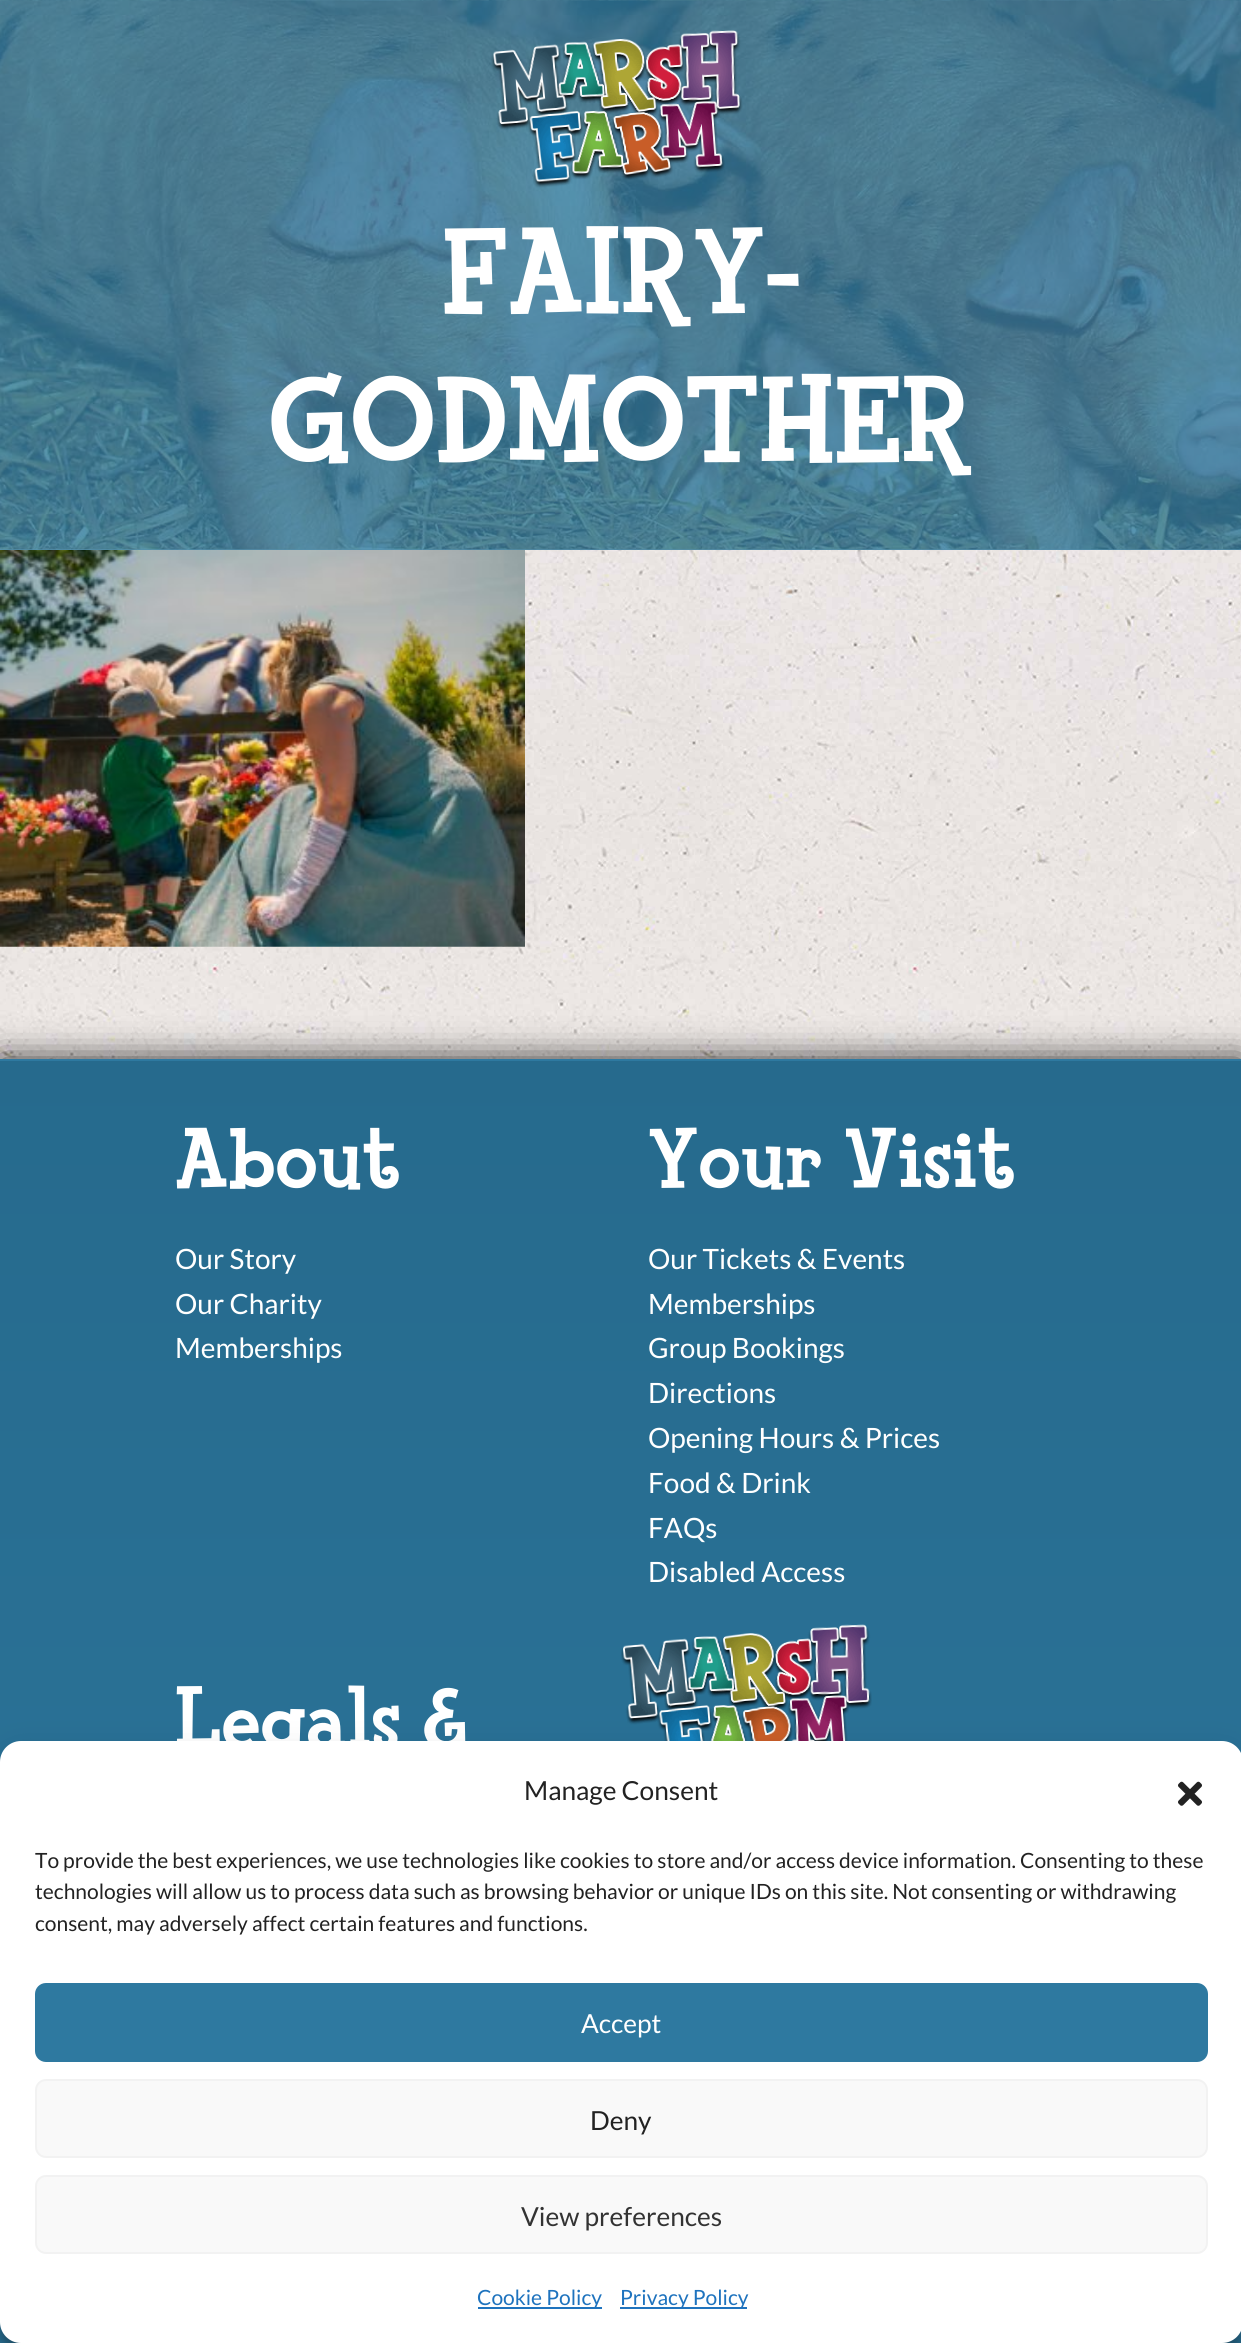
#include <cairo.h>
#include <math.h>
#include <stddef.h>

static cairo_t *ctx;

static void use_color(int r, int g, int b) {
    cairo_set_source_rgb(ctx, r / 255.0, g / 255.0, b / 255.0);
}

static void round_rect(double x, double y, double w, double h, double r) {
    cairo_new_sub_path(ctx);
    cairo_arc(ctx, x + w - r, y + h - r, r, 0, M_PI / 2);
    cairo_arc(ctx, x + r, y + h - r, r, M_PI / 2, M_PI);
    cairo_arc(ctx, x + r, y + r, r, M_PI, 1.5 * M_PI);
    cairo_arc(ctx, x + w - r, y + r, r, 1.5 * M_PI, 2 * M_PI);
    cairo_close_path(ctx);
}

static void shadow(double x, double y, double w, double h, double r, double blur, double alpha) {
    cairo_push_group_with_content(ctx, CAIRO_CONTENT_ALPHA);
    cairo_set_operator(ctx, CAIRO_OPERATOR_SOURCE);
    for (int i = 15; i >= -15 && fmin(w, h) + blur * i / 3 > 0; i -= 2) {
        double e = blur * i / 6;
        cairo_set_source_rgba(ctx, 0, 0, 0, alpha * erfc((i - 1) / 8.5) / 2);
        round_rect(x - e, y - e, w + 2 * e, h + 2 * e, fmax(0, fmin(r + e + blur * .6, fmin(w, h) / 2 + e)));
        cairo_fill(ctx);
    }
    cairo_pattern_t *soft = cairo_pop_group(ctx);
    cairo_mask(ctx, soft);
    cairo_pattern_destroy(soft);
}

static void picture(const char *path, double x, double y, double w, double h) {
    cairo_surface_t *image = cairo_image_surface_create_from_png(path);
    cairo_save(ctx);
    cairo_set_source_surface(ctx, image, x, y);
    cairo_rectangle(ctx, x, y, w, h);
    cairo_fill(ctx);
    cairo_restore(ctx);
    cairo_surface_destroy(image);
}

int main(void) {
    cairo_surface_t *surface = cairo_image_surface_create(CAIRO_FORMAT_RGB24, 1241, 2343);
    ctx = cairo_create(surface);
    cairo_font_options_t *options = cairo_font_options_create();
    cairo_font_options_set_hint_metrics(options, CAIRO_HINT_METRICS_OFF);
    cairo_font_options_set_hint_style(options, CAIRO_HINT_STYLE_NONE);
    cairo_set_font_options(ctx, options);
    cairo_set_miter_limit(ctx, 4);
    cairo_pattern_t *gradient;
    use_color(255, 255, 255);
    cairo_paint(ctx);
    picture("img1.png", 0, 550, 1241, 509);
    picture("img3.png", 0, 0, 1241, 550);
    cairo_set_source_rgba(ctx, 0.18, 0.475, 0.627, 0.8);
    cairo_rectangle(ctx, 0, 0, 1241, 550);
    cairo_fill(ctx);
    picture("img2.png", 491, 30, 252, 158);
    cairo_select_font_face(ctx, "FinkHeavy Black", CAIRO_FONT_SLANT_NORMAL, CAIRO_FONT_WEIGHT_NORMAL);
    cairo_set_font_size(ctx, 124.25);
    use_color(255, 255, 255);
    cairo_move_to(ctx, 442, 312);
    cairo_show_text(ctx, "FAIRY-");
    cairo_move_to(ctx, 269, 461);
    cairo_show_text(ctx, "GODMOTHER");
    picture("img4.png", 0, 550, 525, 397);
    use_color(0, 0, 0);
    shadow(0, 1059, 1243, 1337, 0, 17.5, 0.8);
    gradient = cairo_pattern_create_linear(621, 1061, 621, -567);
    cairo_pattern_add_color_stop_rgba(gradient, 0, 0.18, 0.475, 0.627, 1);
    cairo_pattern_add_color_stop_rgba(gradient, 1, 0.149, 0.416, 0.553, 1);
    cairo_set_source(ctx, gradient);
    cairo_pattern_destroy(gradient);
    cairo_rectangle(ctx, 0, 1059, 1241, 2);
    cairo_fill(ctx);
    gradient = cairo_pattern_create_linear(621, 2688, 621, 1061);
    cairo_pattern_add_color_stop_rgba(gradient, 0, 0.18, 0.475, 0.627, 1);
    cairo_pattern_add_color_stop_rgba(gradient, 1, 0.149, 0.416, 0.553, 1);
    cairo_set_source(ctx, gradient);
    cairo_pattern_destroy(gradient);
    cairo_rectangle(ctx, 0, 1061, 1241, 1282);
    cairo_fill(ctx);
    cairo_set_font_size(ctx, 87);
    use_color(255, 255, 255);
    cairo_move_to(ctx, 175, 1187);
    cairo_show_text(ctx, "About");
    cairo_select_font_face(ctx, "Lato", CAIRO_FONT_SLANT_NORMAL, CAIRO_FONT_WEIGHT_NORMAL);
    cairo_set_font_size(ctx, 28);
    cairo_move_to(ctx, 175, 1269);
    cairo_show_text(ctx, "Our Story");
    cairo_move_to(ctx, 175, 1314);
    cairo_show_text(ctx, "Our Charity");
    cairo_move_to(ctx, 175, 1358);
    cairo_show_text(ctx, "Memberships");
    cairo_select_font_face(ctx, "FinkHeavy Black", CAIRO_FONT_SLANT_NORMAL, CAIRO_FONT_WEIGHT_NORMAL);
    cairo_set_font_size(ctx, 87);
    cairo_move_to(ctx, 648, 1187);
    cairo_show_text(ctx, "Your Visit");
    cairo_select_font_face(ctx, "Lato", CAIRO_FONT_SLANT_NORMAL, CAIRO_FONT_WEIGHT_NORMAL);
    cairo_set_font_size(ctx, 28);
    cairo_move_to(ctx, 648, 1269);
    cairo_show_text(ctx, "Our Tickets & Events");
    cairo_move_to(ctx, 648, 1314);
    cairo_show_text(ctx, "Memberships");
    cairo_move_to(ctx, 648, 1358);
    cairo_show_text(ctx, "Group Bookings");
    cairo_move_to(ctx, 648, 1403);
    cairo_show_text(ctx, "Directions");
    cairo_move_to(ctx, 648, 1448);
    cairo_show_text(ctx, "Opening Hours & Prices");
    cairo_move_to(ctx, 648, 1493);
    cairo_show_text(ctx, "Food & Drink");
    cairo_move_to(ctx, 648, 1538);
    cairo_show_text(ctx, "FAQs");
    cairo_move_to(ctx, 648, 1582);
    cairo_show_text(ctx, "Disabled Access");
    cairo_select_font_face(ctx, "FinkHeavy Black", CAIRO_FONT_SLANT_NORMAL, CAIRO_FONT_WEIGHT_NORMAL);
    cairo_set_font_size(ctx, 87);
    cairo_move_to(ctx, 175, 1748);
    cairo_show_text(ctx, "Legals &");
    picture("img5.png", 621, 1624, 251, 117);
    use_color(0, 0, 0);
    shadow(0, 1752, 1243, 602, 21, 5, 0.23);
    shadow(0, 1759, 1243, 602, 21, 17.5, 0.19);
    use_color(255, 255, 255);
    round_rect(0, 1741, 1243, 602, 21);
    cairo_fill(ctx);
    cairo_select_font_face(ctx, "Lato", CAIRO_FONT_SLANT_NORMAL, CAIRO_FONT_WEIGHT_NORMAL);
    cairo_set_font_size(ctx, 26.25);
    use_color(34, 34, 34);
    cairo_move_to(ctx, 524, 1800);
    cairo_show_text(ctx, "Manage Consent");
    picture("img6.png", 1178, 1781, 24, 25);
    cairo_set_font_size(ctx, 21);
    cairo_move_to(ctx, 35, 1868);
    cairo_show_text(ctx, "To provide the best experiences, we use technologies like cookies to store and/or access device information. Consenting to these");
    cairo_move_to(ctx, 35, 1899);
    cairo_show_text(ctx, "technologies will allow us to process data such as browsing behavior or unique IDs on this site. Not consenting or withdrawing");
    cairo_move_to(ctx, 35, 1931);
    cairo_show_text(ctx, "consent, may adversely affect certain features and functions.");
    use_color(46, 121, 160);
    round_rect(36, 1984, 1171, 77, 10);
    cairo_fill_preserve(ctx);
    cairo_stroke(ctx);
    cairo_set_font_size(ctx, 26.25);
    use_color(255, 255, 255);
    cairo_move_to(ctx, 581, 2033);
    cairo_show_text(ctx, "Accept");
    use_color(249, 249, 249);
    round_rect(36, 2080, 1171, 77, 10);
    cairo_fill_preserve(ctx);
    use_color(242, 242, 242);
    cairo_stroke(ctx);
    use_color(34, 34, 34);
    cairo_move_to(ctx, 590, 2130);
    cairo_show_text(ctx, "Deny");
    use_color(249, 249, 249);
    round_rect(36, 2176, 1171, 77, 10);
    cairo_fill_preserve(ctx);
    use_color(242, 242, 242);
    cairo_stroke(ctx);
    use_color(51, 51, 51);
    cairo_move_to(ctx, 521, 2226);
    cairo_show_text(ctx, "View preferences");
    use_color(30, 115, 190);
    cairo_rectangle(ctx, 478, 2307, 124, 2);
    cairo_fill(ctx);
    cairo_set_font_size(ctx, 21);
    cairo_move_to(ctx, 477, 2305);
    cairo_show_text(ctx, "Cookie Policy");
    cairo_rectangle(ctx, 620, 2307, 127, 2);
    cairo_fill(ctx);
    cairo_move_to(ctx, 620, 2305);
    cairo_show_text(ctx, "Privacy Policy");
    cairo_surface_write_to_png(surface, "result.png");
    cairo_font_options_destroy(options);
    cairo_destroy(ctx);
    cairo_surface_destroy(surface);
    return 0;
}
